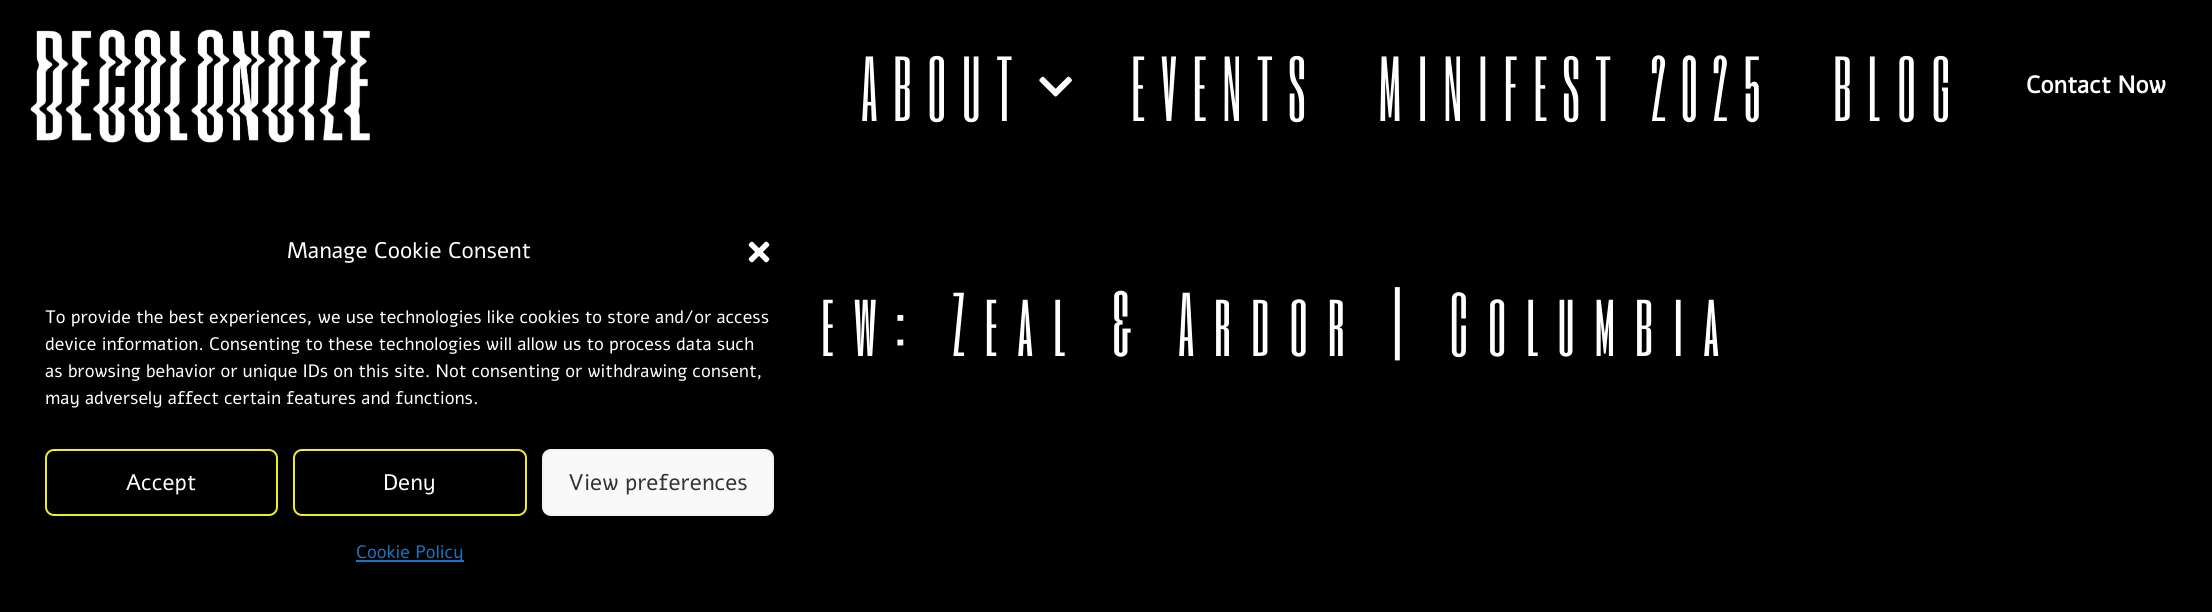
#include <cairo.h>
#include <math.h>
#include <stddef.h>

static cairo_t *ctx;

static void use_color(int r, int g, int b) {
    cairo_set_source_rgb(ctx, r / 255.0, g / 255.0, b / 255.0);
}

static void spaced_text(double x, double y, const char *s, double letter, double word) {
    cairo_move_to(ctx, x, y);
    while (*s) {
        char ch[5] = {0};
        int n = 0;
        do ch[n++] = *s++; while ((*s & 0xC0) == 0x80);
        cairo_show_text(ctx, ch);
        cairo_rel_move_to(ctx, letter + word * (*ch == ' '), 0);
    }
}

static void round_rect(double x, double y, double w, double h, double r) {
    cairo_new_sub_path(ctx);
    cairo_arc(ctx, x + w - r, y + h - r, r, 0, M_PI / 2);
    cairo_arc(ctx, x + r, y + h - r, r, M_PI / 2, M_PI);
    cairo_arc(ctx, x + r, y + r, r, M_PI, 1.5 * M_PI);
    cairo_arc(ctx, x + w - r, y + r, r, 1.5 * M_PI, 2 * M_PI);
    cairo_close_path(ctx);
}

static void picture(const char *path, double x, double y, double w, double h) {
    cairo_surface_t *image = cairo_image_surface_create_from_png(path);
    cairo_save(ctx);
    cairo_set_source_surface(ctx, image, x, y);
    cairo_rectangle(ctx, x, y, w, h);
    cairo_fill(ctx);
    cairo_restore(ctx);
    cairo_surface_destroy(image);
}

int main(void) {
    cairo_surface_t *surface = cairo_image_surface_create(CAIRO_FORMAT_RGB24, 2212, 612);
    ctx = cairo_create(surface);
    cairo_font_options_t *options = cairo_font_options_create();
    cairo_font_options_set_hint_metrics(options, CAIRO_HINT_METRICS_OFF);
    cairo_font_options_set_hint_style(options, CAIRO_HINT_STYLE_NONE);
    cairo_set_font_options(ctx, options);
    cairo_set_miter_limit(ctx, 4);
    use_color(0, 0, 0);
    cairo_paint(ctx);
    picture("img1.png", 30, 29, 340, 114);
    cairo_select_font_face(ctx, "Six Caps", CAIRO_FONT_SLANT_NORMAL, CAIRO_FONT_WEIGHT_NORMAL);
    cairo_set_font_size(ctx, 76.5);
    use_color(255, 255, 255);
    spaced_text(861, 121, "ABOUT", 15.25, 0);
    picture("img2.png", 1039, 76, 33, 21);
    spaced_text(1131, 121, "EVENTS", 15.25, 0);
    spaced_text(1378, 121, "MINIFEST 2025", 15.25, 0);
    spaced_text(1833, 121, "BLOG", 15.25, 0);
    cairo_select_font_face(ctx, "Alef", CAIRO_FONT_SLANT_NORMAL, CAIRO_FONT_WEIGHT_BOLD);
    cairo_set_font_size(ctx, 24);
    cairo_move_to(ctx, 2026, 93);
    cairo_show_text(ctx, "Contact Now");
    cairo_select_font_face(ctx, "Six Caps", CAIRO_FONT_SLANT_NORMAL, CAIRO_FONT_WEIGHT_NORMAL);
    cairo_set_font_size(ctx, 75);
    spaced_text(821, 356, "ew: Zeal & Ardor | Columbia", 19.5, 0);
    cairo_select_font_face(ctx, "Alef", CAIRO_FONT_SLANT_NORMAL, CAIRO_FONT_WEIGHT_NORMAL);
    cairo_set_font_size(ctx, 22.5);
    cairo_move_to(ctx, 287, 258);
    cairo_show_text(ctx, "Manage Cookie Consent");
    picture("img3.png", 748, 241, 22, 22);
    cairo_set_font_size(ctx, 18);
    cairo_move_to(ctx, 45, 323);
    cairo_show_text(ctx, "To provide the best experiences, we use technologies like cookies to store and/or access");
    cairo_move_to(ctx, 45, 350);
    cairo_show_text(ctx, "device information. Consenting to these technologies will allow us to process data such");
    cairo_move_to(ctx, 45, 377);
    cairo_show_text(ctx, "as browsing behavior or unique IDs on this site. Not consenting or withdrawing consent,");
    cairo_move_to(ctx, 45, 404);
    cairo_show_text(ctx, "may adversely affect certain features and functions.");
    round_rect(46, 450, 231, 65, 8);
    use_color(238, 238, 34);
    cairo_stroke(ctx);
    cairo_set_font_size(ctx, 22.5);
    use_color(255, 255, 255);
    cairo_move_to(ctx, 126, 490);
    cairo_show_text(ctx, "Accept");
    round_rect(294, 450, 232, 65, 8);
    use_color(238, 238, 34);
    cairo_stroke(ctx);
    use_color(255, 255, 255);
    cairo_move_to(ctx, 383, 490);
    cairo_show_text(ctx, "Deny");
    use_color(249, 249, 249);
    round_rect(543, 450, 230, 65, 8);
    cairo_fill_preserve(ctx);
    use_color(242, 242, 242);
    cairo_stroke(ctx);
    use_color(51, 51, 51);
    cairo_move_to(ctx, 568, 490);
    cairo_show_text(ctx, "View preferences");
    use_color(30, 115, 190);
    cairo_rectangle(ctx, 356, 560, 108, 2);
    cairo_fill(ctx);
    cairo_set_font_size(ctx, 18);
    cairo_move_to(ctx, 356, 558);
    cairo_show_text(ctx, "Cookie Policy");
    cairo_surface_write_to_png(surface, "result.png");
    cairo_font_options_destroy(options);
    cairo_destroy(ctx);
    cairo_surface_destroy(surface);
    return 0;
}
